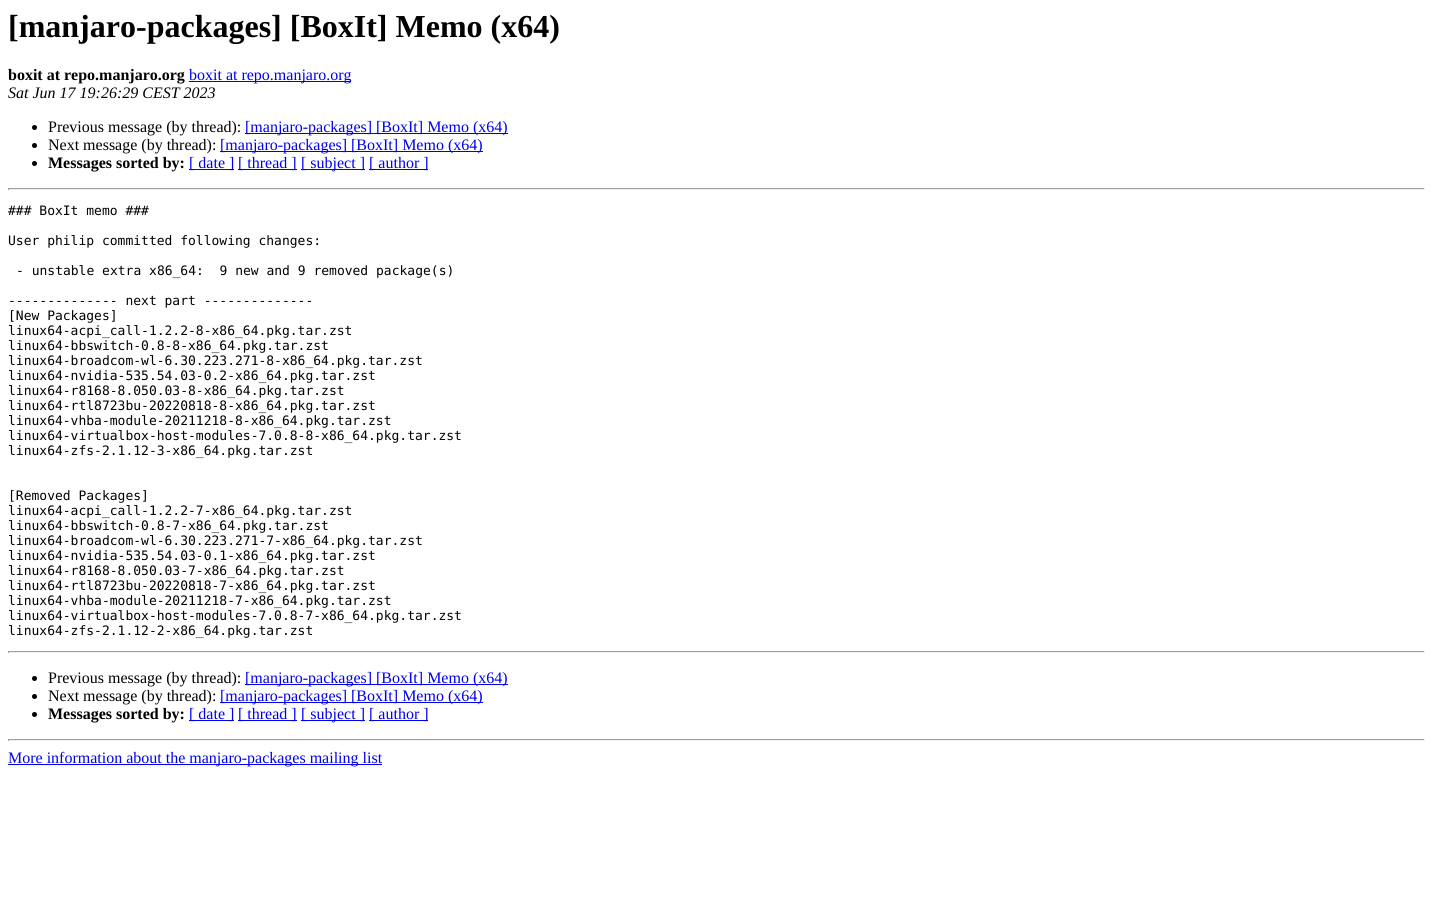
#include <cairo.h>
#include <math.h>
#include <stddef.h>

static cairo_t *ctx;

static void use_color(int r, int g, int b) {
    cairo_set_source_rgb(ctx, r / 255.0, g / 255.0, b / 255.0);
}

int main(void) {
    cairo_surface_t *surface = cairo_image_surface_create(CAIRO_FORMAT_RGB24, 1433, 921);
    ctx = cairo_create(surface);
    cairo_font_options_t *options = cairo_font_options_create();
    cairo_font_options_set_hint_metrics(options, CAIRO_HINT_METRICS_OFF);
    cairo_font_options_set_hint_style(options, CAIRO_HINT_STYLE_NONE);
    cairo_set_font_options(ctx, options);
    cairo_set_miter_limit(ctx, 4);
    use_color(255, 255, 255);
    cairo_paint(ctx);
    cairo_select_font_face(ctx, "Liberation Serif", CAIRO_FONT_SLANT_NORMAL, CAIRO_FONT_WEIGHT_BOLD);
    cairo_set_font_size(ctx, 32);
    use_color(0, 0, 0);
    cairo_move_to(ctx, 8, 37);
    cairo_show_text(ctx, "[manjaro-packages] [BoxIt] Memo (x64)");
    cairo_set_font_size(ctx, 16);
    cairo_move_to(ctx, 8, 80);
    cairo_show_text(ctx, "boxit at repo.manjaro.org");
    use_color(0, 0, 238);
    cairo_rectangle(ctx, 189, 81, 162, 1);
    cairo_fill(ctx);
    cairo_select_font_face(ctx, "Liberation Serif", CAIRO_FONT_SLANT_NORMAL, CAIRO_FONT_WEIGHT_NORMAL);
    cairo_move_to(ctx, 189, 80);
    cairo_show_text(ctx, "boxit at repo.manjaro.org");
    cairo_select_font_face(ctx, "Liberation Serif", CAIRO_FONT_SLANT_ITALIC, CAIRO_FONT_WEIGHT_NORMAL);
    use_color(0, 0, 0);
    cairo_move_to(ctx, 8, 98);
    cairo_show_text(ctx, "Sat Jun 17 19:26:29 CEST 2023");
    cairo_new_path(ctx);
    cairo_arc(ctx, 34.5, 127.5, 2.5, 0, 2 * M_PI);
    cairo_fill(ctx);
    cairo_select_font_face(ctx, "Liberation Serif", CAIRO_FONT_SLANT_NORMAL, CAIRO_FONT_WEIGHT_NORMAL);
    cairo_move_to(ctx, 48, 132);
    cairo_show_text(ctx, "Previous message (by thread):");
    use_color(0, 0, 238);
    cairo_rectangle(ctx, 245, 133, 263, 1);
    cairo_fill(ctx);
    cairo_move_to(ctx, 245, 132);
    cairo_show_text(ctx, "[manjaro-packages] [BoxIt] Memo (x64)");
    use_color(0, 0, 0);
    cairo_new_path(ctx);
    cairo_arc(ctx, 34.5, 145.5, 2.5, 0, 2 * M_PI);
    cairo_fill(ctx);
    cairo_move_to(ctx, 48, 150);
    cairo_show_text(ctx, "Next message (by thread):");
    use_color(0, 0, 238);
    cairo_rectangle(ctx, 220, 151, 263, 1);
    cairo_fill(ctx);
    cairo_move_to(ctx, 220, 150);
    cairo_show_text(ctx, "[manjaro-packages] [BoxIt] Memo (x64)");
    use_color(0, 0, 0);
    cairo_new_path(ctx);
    cairo_arc(ctx, 34.5, 163.5, 2.5, 0, 2 * M_PI);
    cairo_fill(ctx);
    cairo_select_font_face(ctx, "Liberation Serif", CAIRO_FONT_SLANT_NORMAL, CAIRO_FONT_WEIGHT_BOLD);
    cairo_move_to(ctx, 48, 168);
    cairo_show_text(ctx, "Messages sorted by:");
    use_color(0, 0, 238);
    cairo_rectangle(ctx, 189, 169, 45, 1);
    cairo_fill(ctx);
    cairo_select_font_face(ctx, "Liberation Serif", CAIRO_FONT_SLANT_NORMAL, CAIRO_FONT_WEIGHT_NORMAL);
    cairo_move_to(ctx, 189, 168);
    cairo_show_text(ctx, "[ date ]");
    cairo_rectangle(ctx, 238, 169, 59, 1);
    cairo_fill(ctx);
    cairo_move_to(ctx, 238, 168);
    cairo_show_text(ctx, "[ thread ]");
    cairo_rectangle(ctx, 301, 169, 64, 1);
    cairo_fill(ctx);
    cairo_move_to(ctx, 301, 168);
    cairo_show_text(ctx, "[ subject ]");
    cairo_rectangle(ctx, 369, 169, 59, 1);
    cairo_fill(ctx);
    cairo_move_to(ctx, 369, 168);
    cairo_show_text(ctx, "[ author ]");
    use_color(159, 159, 159);
    cairo_rectangle(ctx, 8, 188, 1417, 1);
    cairo_fill(ctx);
    use_color(238, 238, 238);
    cairo_rectangle(ctx, 1424, 188, 1, 2);
    cairo_fill(ctx);
    cairo_rectangle(ctx, 8, 189, 1417, 1);
    cairo_fill(ctx);
    use_color(159, 159, 159);
    cairo_rectangle(ctx, 8, 188, 1, 2);
    cairo_fill(ctx);
    cairo_select_font_face(ctx, "DejaVu Sans Mono", CAIRO_FONT_SLANT_NORMAL, CAIRO_FONT_WEIGHT_NORMAL);
    cairo_set_font_size(ctx, 13);
    use_color(0, 0, 0);
    cairo_move_to(ctx, 8, 215);
    cairo_show_text(ctx, "### BoxIt memo ###");
    cairo_move_to(ctx, 8, 245);
    cairo_show_text(ctx, "User philip committed following changes:");
    cairo_move_to(ctx, 16, 275);
    cairo_show_text(ctx, "- unstable extra x86_64:  9 new and 9 removed package(s)");
    cairo_move_to(ctx, 8, 305);
    cairo_show_text(ctx, "-------------- next part --------------");
    cairo_move_to(ctx, 8, 320);
    cairo_show_text(ctx, "[New Packages]");
    cairo_move_to(ctx, 8, 335);
    cairo_show_text(ctx, "linux64-acpi_call-1.2.2-8-x86_64.pkg.tar.zst");
    cairo_move_to(ctx, 8, 350);
    cairo_show_text(ctx, "linux64-bbswitch-0.8-8-x86_64.pkg.tar.zst");
    cairo_move_to(ctx, 8, 365);
    cairo_show_text(ctx, "linux64-broadcom-wl-6.30.223.271-8-x86_64.pkg.tar.zst");
    cairo_move_to(ctx, 8, 380);
    cairo_show_text(ctx, "linux64-nvidia-535.54.03-0.2-x86_64.pkg.tar.zst");
    cairo_move_to(ctx, 8, 395);
    cairo_show_text(ctx, "linux64-r8168-8.050.03-8-x86_64.pkg.tar.zst");
    cairo_move_to(ctx, 8, 410);
    cairo_show_text(ctx, "linux64-rtl8723bu-20220818-8-x86_64.pkg.tar.zst");
    cairo_move_to(ctx, 8, 425);
    cairo_show_text(ctx, "linux64-vhba-module-20211218-8-x86_64.pkg.tar.zst");
    cairo_move_to(ctx, 8, 440);
    cairo_show_text(ctx, "linux64-virtualbox-host-modules-7.0.8-8-x86_64.pkg.tar.zst");
    cairo_move_to(ctx, 8, 455);
    cairo_show_text(ctx, "linux64-zfs-2.1.12-3-x86_64.pkg.tar.zst");
    cairo_move_to(ctx, 8, 500);
    cairo_show_text(ctx, "[Removed Packages]");
    cairo_move_to(ctx, 8, 515);
    cairo_show_text(ctx, "linux64-acpi_call-1.2.2-7-x86_64.pkg.tar.zst");
    cairo_move_to(ctx, 8, 530);
    cairo_show_text(ctx, "linux64-bbswitch-0.8-7-x86_64.pkg.tar.zst");
    cairo_move_to(ctx, 8, 545);
    cairo_show_text(ctx, "linux64-broadcom-wl-6.30.223.271-7-x86_64.pkg.tar.zst");
    cairo_move_to(ctx, 8, 560);
    cairo_show_text(ctx, "linux64-nvidia-535.54.03-0.1-x86_64.pkg.tar.zst");
    cairo_move_to(ctx, 8, 575);
    cairo_show_text(ctx, "linux64-r8168-8.050.03-7-x86_64.pkg.tar.zst");
    cairo_move_to(ctx, 8, 590);
    cairo_show_text(ctx, "linux64-rtl8723bu-20220818-7-x86_64.pkg.tar.zst");
    cairo_move_to(ctx, 8, 605);
    cairo_show_text(ctx, "linux64-vhba-module-20211218-7-x86_64.pkg.tar.zst");
    cairo_move_to(ctx, 8, 620);
    cairo_show_text(ctx, "linux64-virtualbox-host-modules-7.0.8-7-x86_64.pkg.tar.zst");
    cairo_move_to(ctx, 8, 635);
    cairo_show_text(ctx, "linux64-zfs-2.1.12-2-x86_64.pkg.tar.zst");
    use_color(159, 159, 159);
    cairo_rectangle(ctx, 8, 651, 1417, 1);
    cairo_fill(ctx);
    use_color(238, 238, 238);
    cairo_rectangle(ctx, 1424, 651, 1, 2);
    cairo_fill(ctx);
    cairo_rectangle(ctx, 8, 652, 1417, 1);
    cairo_fill(ctx);
    use_color(159, 159, 159);
    cairo_rectangle(ctx, 8, 651, 1, 2);
    cairo_fill(ctx);
    use_color(0, 0, 0);
    cairo_arc(ctx, 34.5, 678.5, 2.5, 0, 2 * M_PI);
    cairo_fill(ctx);
    cairo_select_font_face(ctx, "Liberation Serif", CAIRO_FONT_SLANT_NORMAL, CAIRO_FONT_WEIGHT_NORMAL);
    cairo_set_font_size(ctx, 16);
    cairo_move_to(ctx, 48, 683);
    cairo_show_text(ctx, "Previous message (by thread):");
    use_color(0, 0, 238);
    cairo_rectangle(ctx, 245, 684, 263, 1);
    cairo_fill(ctx);
    cairo_move_to(ctx, 245, 683);
    cairo_show_text(ctx, "[manjaro-packages] [BoxIt] Memo (x64)");
    use_color(0, 0, 0);
    cairo_new_path(ctx);
    cairo_arc(ctx, 34.5, 696.5, 2.5, 0, 2 * M_PI);
    cairo_fill(ctx);
    cairo_move_to(ctx, 48, 701);
    cairo_show_text(ctx, "Next message (by thread):");
    use_color(0, 0, 238);
    cairo_rectangle(ctx, 220, 702, 263, 1);
    cairo_fill(ctx);
    cairo_move_to(ctx, 220, 701);
    cairo_show_text(ctx, "[manjaro-packages] [BoxIt] Memo (x64)");
    use_color(0, 0, 0);
    cairo_new_path(ctx);
    cairo_arc(ctx, 34.5, 714.5, 2.5, 0, 2 * M_PI);
    cairo_fill(ctx);
    cairo_select_font_face(ctx, "Liberation Serif", CAIRO_FONT_SLANT_NORMAL, CAIRO_FONT_WEIGHT_BOLD);
    cairo_move_to(ctx, 48, 719);
    cairo_show_text(ctx, "Messages sorted by:");
    use_color(0, 0, 238);
    cairo_rectangle(ctx, 189, 720, 45, 1);
    cairo_fill(ctx);
    cairo_select_font_face(ctx, "Liberation Serif", CAIRO_FONT_SLANT_NORMAL, CAIRO_FONT_WEIGHT_NORMAL);
    cairo_move_to(ctx, 189, 719);
    cairo_show_text(ctx, "[ date ]");
    cairo_rectangle(ctx, 238, 720, 59, 1);
    cairo_fill(ctx);
    cairo_move_to(ctx, 238, 719);
    cairo_show_text(ctx, "[ thread ]");
    cairo_rectangle(ctx, 301, 720, 64, 1);
    cairo_fill(ctx);
    cairo_move_to(ctx, 301, 719);
    cairo_show_text(ctx, "[ subject ]");
    cairo_rectangle(ctx, 369, 720, 59, 1);
    cairo_fill(ctx);
    cairo_move_to(ctx, 369, 719);
    cairo_show_text(ctx, "[ author ]");
    use_color(159, 159, 159);
    cairo_rectangle(ctx, 8, 739, 1417, 1);
    cairo_fill(ctx);
    use_color(238, 238, 238);
    cairo_rectangle(ctx, 1424, 739, 1, 2);
    cairo_fill(ctx);
    cairo_rectangle(ctx, 8, 740, 1417, 1);
    cairo_fill(ctx);
    use_color(159, 159, 159);
    cairo_rectangle(ctx, 8, 739, 1, 2);
    cairo_fill(ctx);
    use_color(0, 0, 238);
    cairo_rectangle(ctx, 8, 764, 374, 1);
    cairo_fill(ctx);
    cairo_move_to(ctx, 8, 763);
    cairo_show_text(ctx, "More information about the manjaro-packages mailing list");
    cairo_surface_write_to_png(surface, "result.png");
    cairo_font_options_destroy(options);
    cairo_destroy(ctx);
    cairo_surface_destroy(surface);
    return 0;
}
